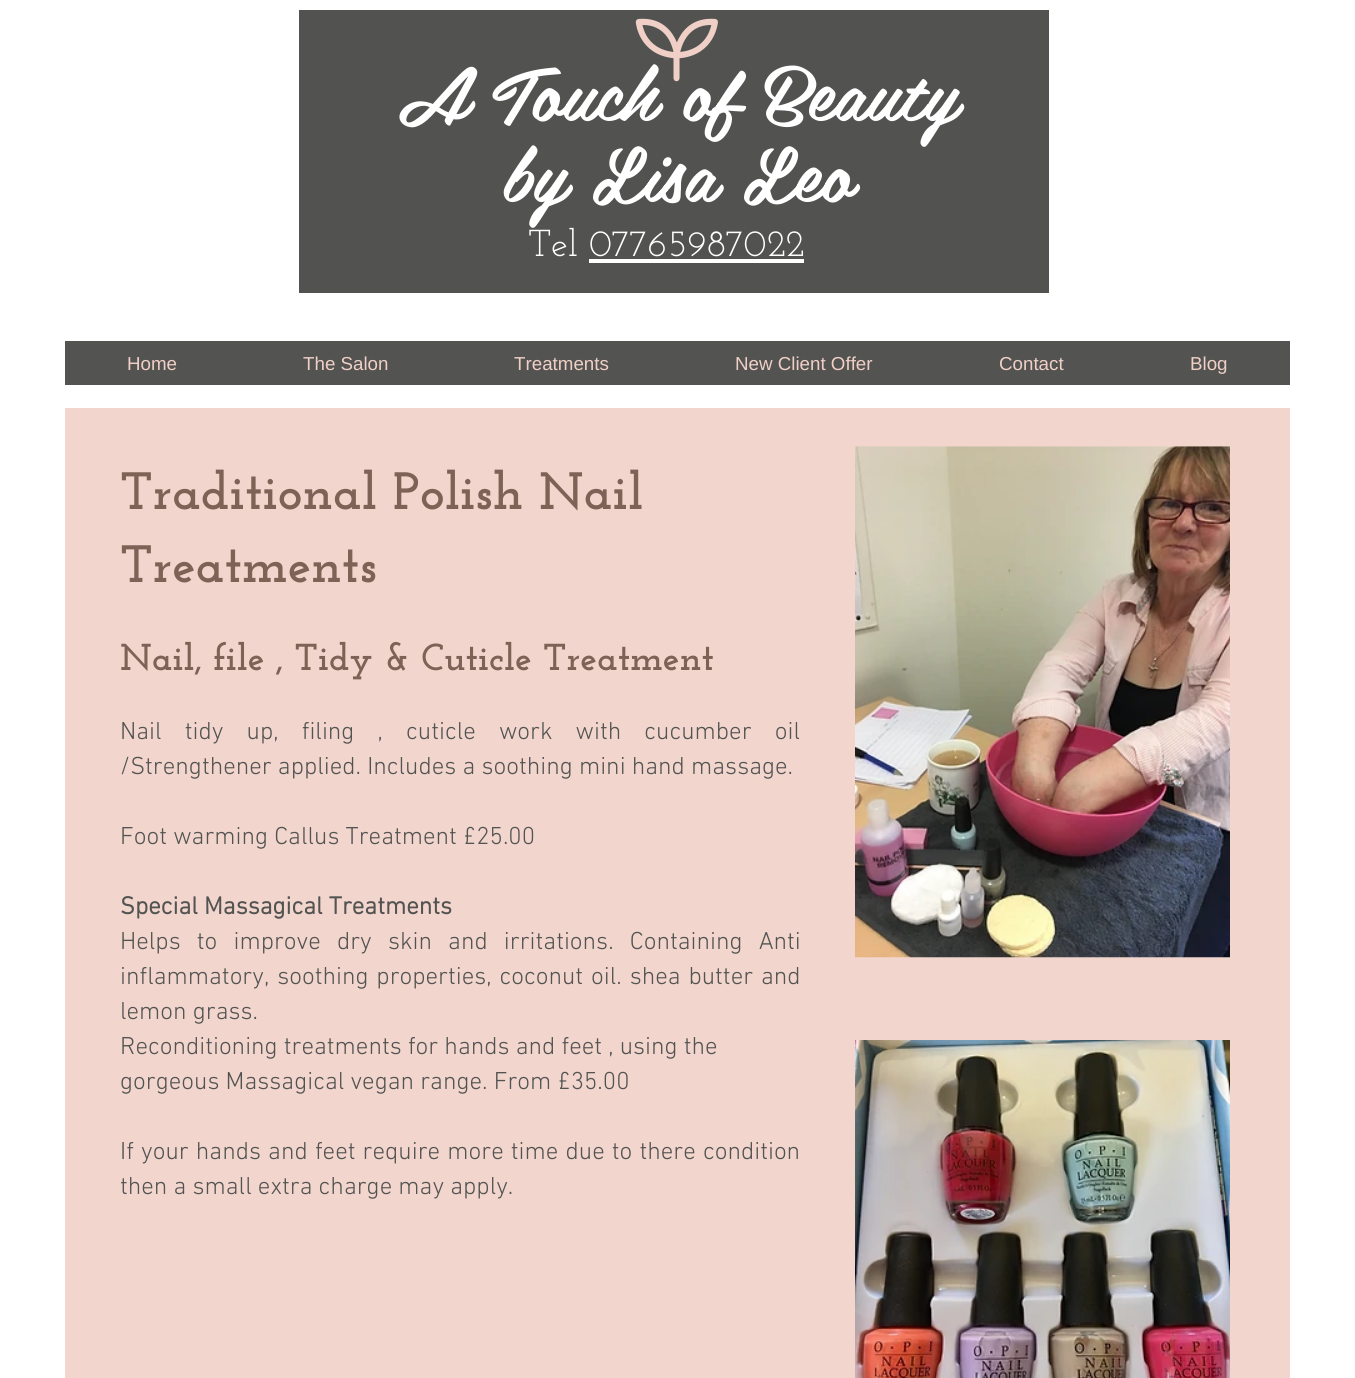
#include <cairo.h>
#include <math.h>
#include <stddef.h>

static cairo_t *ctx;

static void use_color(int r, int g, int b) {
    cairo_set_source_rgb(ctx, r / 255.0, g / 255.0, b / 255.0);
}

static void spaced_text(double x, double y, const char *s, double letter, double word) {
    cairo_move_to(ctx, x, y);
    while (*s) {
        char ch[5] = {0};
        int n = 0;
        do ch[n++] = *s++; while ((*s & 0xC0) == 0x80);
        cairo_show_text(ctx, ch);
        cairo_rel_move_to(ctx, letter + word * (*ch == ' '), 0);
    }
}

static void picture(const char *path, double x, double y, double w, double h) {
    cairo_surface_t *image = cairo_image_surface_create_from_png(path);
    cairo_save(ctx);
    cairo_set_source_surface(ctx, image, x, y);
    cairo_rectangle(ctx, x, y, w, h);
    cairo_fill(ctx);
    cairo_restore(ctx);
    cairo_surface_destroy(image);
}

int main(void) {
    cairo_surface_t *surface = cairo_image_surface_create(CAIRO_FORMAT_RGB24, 1355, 1378);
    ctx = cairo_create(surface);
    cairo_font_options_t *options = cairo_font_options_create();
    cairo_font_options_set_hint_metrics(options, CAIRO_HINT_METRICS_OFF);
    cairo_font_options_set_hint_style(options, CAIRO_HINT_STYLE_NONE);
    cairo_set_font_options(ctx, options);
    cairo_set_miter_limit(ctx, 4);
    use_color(255, 255, 255);
    cairo_paint(ctx);
    use_color(82, 82, 81);
    cairo_rectangle(ctx, 299, 10, 750, 283);
    cairo_fill(ctx);
    cairo_select_font_face(ctx, "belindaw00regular", CAIRO_FONT_SLANT_NORMAL, CAIRO_FONT_WEIGHT_NORMAL);
    cairo_set_font_size(ctx, 76.25);
    use_color(255, 255, 255);
    cairo_move_to(ctx, 398, 121);
    cairo_show_text(ctx, "A Touch of Beauty");
    picture("img1.png", 635, 18, 83, 64);
    cairo_move_to(ctx, 502, 202);
    cairo_show_text(ctx, "by Lisa Leo");
    cairo_select_font_face(ctx, "Josefin Slab", CAIRO_FONT_SLANT_NORMAL, CAIRO_FONT_WEIGHT_NORMAL);
    cairo_set_font_size(ctx, 37.5);
    cairo_move_to(ctx, 528, 256);
    cairo_show_text(ctx, "Tel 07765987022");
    cairo_rectangle(ctx, 589, 259, 215, 4);
    cairo_fill(ctx);
    use_color(83, 83, 82);
    cairo_rectangle(ctx, 65, 341, 1225, 44);
    cairo_fill(ctx);
    cairo_select_font_face(ctx, "Liberation Sans", CAIRO_FONT_SLANT_NORMAL, CAIRO_FONT_WEIGHT_NORMAL);
    cairo_set_font_size(ctx, 18.75);
    use_color(240, 208, 198);
    cairo_move_to(ctx, 127, 370);
    cairo_show_text(ctx, "Home");
    cairo_move_to(ctx, 303, 370);
    cairo_show_text(ctx, "The Salon");
    cairo_move_to(ctx, 514, 370);
    cairo_show_text(ctx, "Treatments");
    cairo_move_to(ctx, 735, 370);
    cairo_show_text(ctx, "New Client Offer");
    cairo_move_to(ctx, 999, 370);
    cairo_show_text(ctx, "Contact");
    cairo_move_to(ctx, 1190, 370);
    cairo_show_text(ctx, "Blog");
    use_color(242, 214, 205);
    cairo_rectangle(ctx, 65, 408, 1225, 970);
    cairo_fill(ctx);
    cairo_select_font_face(ctx, "Josefin Slab", CAIRO_FONT_SLANT_NORMAL, CAIRO_FONT_WEIGHT_BOLD);
    cairo_set_font_size(ctx, 52.5);
    use_color(126, 98, 86);
    cairo_move_to(ctx, 120, 509);
    cairo_show_text(ctx, "Traditional Polish Nail");
    cairo_move_to(ctx, 120, 582);
    cairo_show_text(ctx, "Treatments");
    cairo_set_font_size(ctx, 37.5);
    cairo_move_to(ctx, 120, 670);
    cairo_show_text(ctx, "Nail, file , Tidy & Cuticle Treatment");
    cairo_select_font_face(ctx, "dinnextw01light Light", CAIRO_FONT_SLANT_NORMAL, CAIRO_FONT_WEIGHT_NORMAL);
    cairo_set_font_size(ctx, 25);
    use_color(83, 83, 82);
    spaced_text(120, 739, "Nail tidy up, filing , cuticle work with cucumber oil", 0, 17);
    cairo_move_to(ctx, 120, 774);
    cairo_show_text(ctx, "/Strengthener applied. Includes a soothing mini hand massage.");
    cairo_move_to(ctx, 120, 844);
    cairo_show_text(ctx, "Foot warming Callus Treatment £25.00");
    cairo_select_font_face(ctx, "dinnextw01light", CAIRO_FONT_SLANT_NORMAL, CAIRO_FONT_WEIGHT_BOLD);
    cairo_move_to(ctx, 120, 914);
    cairo_show_text(ctx, "Special Massagical Treatments");
    cairo_select_font_face(ctx, "dinnextw01light Light", CAIRO_FONT_SLANT_NORMAL, CAIRO_FONT_WEIGHT_NORMAL);
    spaced_text(120, 949, "Helps to improve dry skin and irritations. Containing Anti", 0, 10);
    spaced_text(120, 984, "inflammatory, soothing properties, coconut oil. shea butter and", 0, 1.75);
    cairo_move_to(ctx, 120, 1019);
    cairo_show_text(ctx, "lemon grass.");
    cairo_move_to(ctx, 120, 1054);
    cairo_show_text(ctx, "Reconditioning treatments for hands and feet , using the");
    cairo_move_to(ctx, 120, 1089);
    cairo_show_text(ctx, "gorgeous Massagical vegan range. From £35.00");
    spaced_text(120, 1159, "If your hands and feet require more time due to there condition", 0, 1);
    cairo_move_to(ctx, 120, 1194);
    cairo_show_text(ctx, "then a small extra charge may apply.");
    picture("img2.png", 855, 446, 375, 512);
    picture("img3.png", 855, 1040, 375, 338);
    cairo_surface_write_to_png(surface, "result.png");
    cairo_font_options_destroy(options);
    cairo_destroy(ctx);
    cairo_surface_destroy(surface);
    return 0;
}
